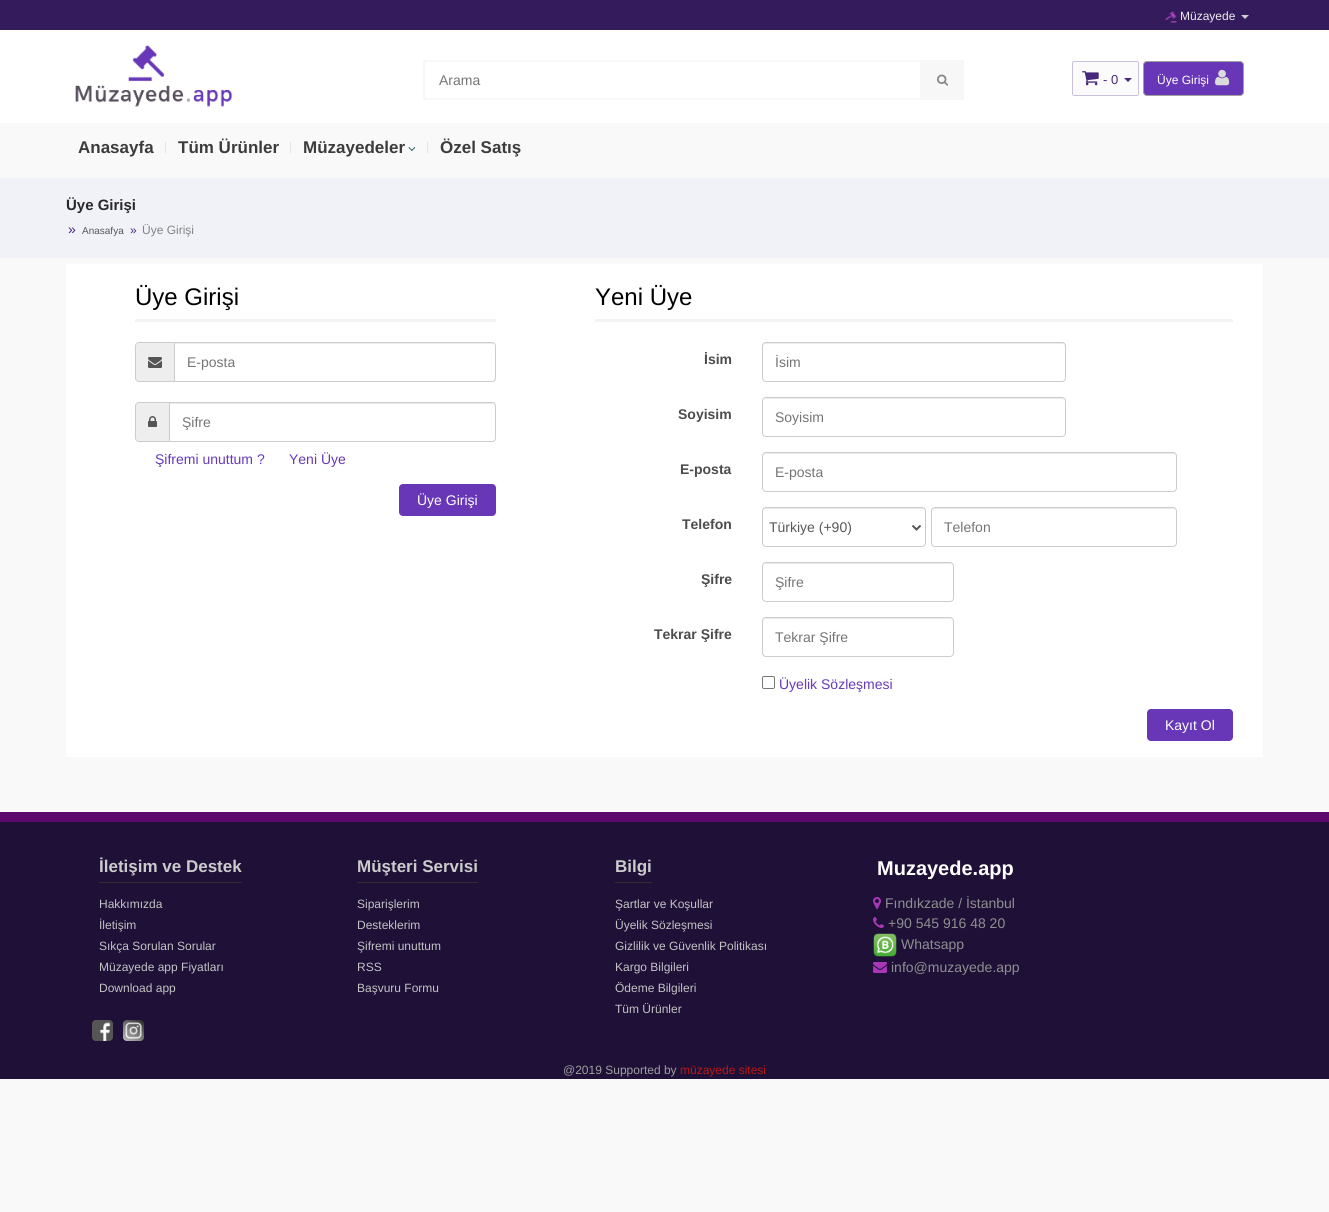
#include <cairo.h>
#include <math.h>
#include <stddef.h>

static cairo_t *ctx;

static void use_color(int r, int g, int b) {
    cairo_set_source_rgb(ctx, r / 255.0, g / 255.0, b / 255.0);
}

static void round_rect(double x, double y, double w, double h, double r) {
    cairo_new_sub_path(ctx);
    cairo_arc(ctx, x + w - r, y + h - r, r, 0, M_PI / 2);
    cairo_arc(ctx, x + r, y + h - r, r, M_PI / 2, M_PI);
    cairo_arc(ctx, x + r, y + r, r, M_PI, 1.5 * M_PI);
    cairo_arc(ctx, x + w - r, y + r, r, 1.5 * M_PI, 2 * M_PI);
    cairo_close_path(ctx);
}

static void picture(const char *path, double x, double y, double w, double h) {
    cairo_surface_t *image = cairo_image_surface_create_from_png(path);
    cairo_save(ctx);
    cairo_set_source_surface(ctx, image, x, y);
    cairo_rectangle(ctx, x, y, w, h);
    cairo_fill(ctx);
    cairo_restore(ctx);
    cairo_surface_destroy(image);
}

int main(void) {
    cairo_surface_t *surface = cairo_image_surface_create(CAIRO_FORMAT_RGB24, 1329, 1212);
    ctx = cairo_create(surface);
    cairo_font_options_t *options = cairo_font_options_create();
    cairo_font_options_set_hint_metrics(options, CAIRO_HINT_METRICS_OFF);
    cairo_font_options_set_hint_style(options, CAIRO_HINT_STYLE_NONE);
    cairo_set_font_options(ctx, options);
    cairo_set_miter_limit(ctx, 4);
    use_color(249, 249, 249);
    cairo_paint(ctx);
    use_color(255, 255, 255);
    cairo_rectangle(ctx, 0, 30, 1329, 93);
    cairo_fill(ctx);
    use_color(51, 27, 92);
    cairo_rectangle(ctx, 0, 0, 1329, 30);
    cairo_fill(ctx);
    picture("img1.png", 1165, 11, 12, 12);
    cairo_select_font_face(ctx, "Liberation Sans", CAIRO_FONT_SLANT_NORMAL, CAIRO_FONT_WEIGHT_NORMAL);
    cairo_set_font_size(ctx, 12);
    use_color(237, 237, 237);
    cairo_move_to(ctx, 1180, 20);
    cairo_show_text(ctx, "Müzayede");
    use_color(206, 206, 206);
    cairo_new_path(ctx);
    cairo_move_to(ctx, 1241, 15);
    cairo_line_to(ctx, 1249, 15);
    cairo_line_to(ctx, 1245, 19);
    cairo_close_path(ctx);
    cairo_fill(ctx);
    picture("img2.png", 75, 45, 158, 62);
    cairo_rectangle(ctx, 424, 61, 497, 38);
    use_color(247, 247, 247);
    cairo_stroke(ctx);
    cairo_set_font_size(ctx, 14);
    use_color(117, 117, 117);
    cairo_move_to(ctx, 439, 85);
    cairo_show_text(ctx, "Arama");
    use_color(247, 247, 247);
    cairo_rectangle(ctx, 922, 60, 42, 40);
    cairo_fill(ctx);
    picture("img3.png", 937, 74, 12, 12);
    use_color(251, 251, 251);
    round_rect(1072.5, 61.5, 66, 34, 1.5);
    cairo_fill_preserve(ctx);
    use_color(203, 193, 221);
    cairo_set_line_width(ctx, 1);
    cairo_stroke(ctx);
    picture("img4.png", 1082, 71, 17, 15);
    cairo_set_font_size(ctx, 13);
    use_color(70, 40, 125);
    cairo_move_to(ctx, 1103, 84);
    cairo_show_text(ctx, "- 0");
    cairo_new_path(ctx);
    cairo_move_to(ctx, 1124, 78);
    cairo_line_to(ctx, 1132, 78);
    cairo_line_to(ctx, 1128, 82);
    cairo_close_path(ctx);
    cairo_fill(ctx);
    use_color(103, 55, 184);
    round_rect(1143.5, 61.5, 100, 34, 3.5);
    cairo_fill_preserve(ctx);
    use_color(160, 160, 160);
    cairo_stroke(ctx);
    cairo_set_font_size(ctx, 12);
    use_color(255, 255, 255);
    cairo_move_to(ctx, 1157, 84);
    cairo_show_text(ctx, "Üye Girişi");
    picture("img5.png", 1215, 69, 15, 17);
    cairo_select_font_face(ctx, "Liberation Sans", CAIRO_FONT_SLANT_NORMAL, CAIRO_FONT_WEIGHT_BOLD);
    cairo_set_font_size(ctx, 17);
    use_color(60, 60, 60);
    cairo_move_to(ctx, 78, 153);
    cairo_show_text(ctx, "Anasayfa");
    use_color(227, 227, 227);
    cairo_rectangle(ctx, 165, 142, 1, 11);
    cairo_fill(ctx);
    use_color(60, 60, 60);
    cairo_move_to(ctx, 178, 153);
    cairo_show_text(ctx, "Tüm Ürünler");
    use_color(227, 227, 227);
    cairo_rectangle(ctx, 290, 142, 1, 11);
    cairo_fill(ctx);
    use_color(60, 60, 60);
    cairo_move_to(ctx, 303, 153);
    cairo_show_text(ctx, "Müzayedeler");
    picture("img6.png", 408, 147, 8, 4);
    use_color(227, 227, 227);
    cairo_rectangle(ctx, 427, 142, 1, 11);
    cairo_fill(ctx);
    use_color(60, 60, 60);
    cairo_move_to(ctx, 440, 153);
    cairo_show_text(ctx, "Özel Satış");
    use_color(241, 241, 248);
    cairo_rectangle(ctx, 0, 178, 1329, 80);
    cairo_fill(ctx);
    cairo_set_font_size(ctx, 15);
    use_color(41, 41, 41);
    cairo_move_to(ctx, 66, 210);
    cairo_show_text(ctx, "Üye Girişi");
    cairo_select_font_face(ctx, "Liberation Sans", CAIRO_FONT_SLANT_NORMAL, CAIRO_FONT_WEIGHT_NORMAL);
    cairo_set_font_size(ctx, 14);
    use_color(70, 40, 125);
    cairo_move_to(ctx, 68, 234);
    cairo_show_text(ctx, "»");
    cairo_set_font_size(ctx, 10);
    use_color(88, 88, 88);
    cairo_move_to(ctx, 82, 234);
    cairo_show_text(ctx, "Anasafya");
    cairo_set_font_size(ctx, 12);
    use_color(70, 40, 125);
    cairo_move_to(ctx, 130, 234);
    cairo_show_text(ctx, "»");
    use_color(132, 132, 132);
    cairo_move_to(ctx, 142, 234);
    cairo_show_text(ctx, "Üye Girişi");
    use_color(255, 255, 255);
    cairo_rectangle(ctx, 66, 264, 1197, 493);
    cairo_fill(ctx);
    use_color(243, 243, 243);
    cairo_rectangle(ctx, 135, 319, 361, 3);
    cairo_fill(ctx);
    cairo_set_font_size(ctx, 24);
    use_color(0, 0, 0);
    cairo_move_to(ctx, 135, 305);
    cairo_show_text(ctx, "Üye Girişi");
    use_color(238, 238, 238);
    cairo_new_path(ctx);
    cairo_move_to(ctx, 139, 342);
    cairo_line_to(ctx, 174, 342);
    cairo_line_to(ctx, 174, 382);
    cairo_line_to(ctx, 139, 382);
    cairo_curve_to(ctx, 137, 382, 135, 380, 135, 378);
    cairo_line_to(ctx, 135, 346);
    cairo_curve_to(ctx, 135, 344, 137, 342, 139, 342);
    cairo_close_path(ctx);
    cairo_fill(ctx);
    use_color(204, 204, 204);
    cairo_set_fill_rule(ctx, CAIRO_FILL_RULE_EVEN_ODD);
    cairo_new_path(ctx);
    cairo_move_to(ctx, 139, 342);
    cairo_line_to(ctx, 174, 342);
    cairo_line_to(ctx, 174, 382);
    cairo_line_to(ctx, 139, 382);
    cairo_curve_to(ctx, 137, 382, 135, 380, 135, 378);
    cairo_line_to(ctx, 135, 346);
    cairo_curve_to(ctx, 135, 344, 137, 342, 139, 342);
    cairo_close_path(ctx);
    cairo_move_to(ctx, 139, 343);
    cairo_line_to(ctx, 174, 343);
    cairo_line_to(ctx, 174, 381);
    cairo_line_to(ctx, 139, 381);
    cairo_curve_to(ctx, 137, 381, 136, 380, 136, 378);
    cairo_line_to(ctx, 136, 346);
    cairo_curve_to(ctx, 136, 344, 137, 343, 139, 343);
    cairo_close_path(ctx);
    cairo_fill(ctx);
    picture("img7.png", 148, 357, 14, 11);
    use_color(236, 236, 236);
    cairo_set_fill_rule(ctx, CAIRO_FILL_RULE_WINDING);
    cairo_new_path(ctx);
    cairo_move_to(ctx, 175, 344);
    cairo_line_to(ctx, 492, 344);
    cairo_curve_to(ctx, 494, 344, 495, 345, 495, 347);
    cairo_curve_to(ctx, 495, 345, 494, 343, 492, 343);
    cairo_line_to(ctx, 175, 343);
    cairo_close_path(ctx);
    cairo_fill(ctx);
    cairo_new_path(ctx);
    cairo_move_to(ctx, 174.5, 342.5);
    cairo_line_to(ctx, 492, 342.5);
    cairo_curve_to(ctx, 494, 342.5, 495.5, 344, 495.5, 346);
    cairo_line_to(ctx, 495.5, 378);
    cairo_curve_to(ctx, 495.5, 380, 494, 381.5, 492, 381.5);
    cairo_line_to(ctx, 174.5, 381.5);
    cairo_close_path(ctx);
    use_color(204, 204, 204);
    cairo_stroke(ctx);
    cairo_set_font_size(ctx, 14);
    use_color(117, 117, 117);
    cairo_move_to(ctx, 187, 367);
    cairo_show_text(ctx, "E-posta");
    use_color(238, 238, 238);
    cairo_new_path(ctx);
    cairo_move_to(ctx, 139, 402);
    cairo_line_to(ctx, 169, 402);
    cairo_line_to(ctx, 169, 442);
    cairo_line_to(ctx, 139, 442);
    cairo_curve_to(ctx, 137, 442, 135, 440, 135, 438);
    cairo_line_to(ctx, 135, 406);
    cairo_curve_to(ctx, 135, 404, 137, 402, 139, 402);
    cairo_close_path(ctx);
    cairo_fill(ctx);
    use_color(204, 204, 204);
    cairo_set_fill_rule(ctx, CAIRO_FILL_RULE_EVEN_ODD);
    cairo_new_path(ctx);
    cairo_move_to(ctx, 139, 402);
    cairo_line_to(ctx, 169, 402);
    cairo_line_to(ctx, 169, 442);
    cairo_line_to(ctx, 139, 442);
    cairo_curve_to(ctx, 137, 442, 135, 440, 135, 438);
    cairo_line_to(ctx, 135, 406);
    cairo_curve_to(ctx, 135, 404, 137, 402, 139, 402);
    cairo_close_path(ctx);
    cairo_move_to(ctx, 139, 403);
    cairo_line_to(ctx, 169, 403);
    cairo_line_to(ctx, 169, 441);
    cairo_line_to(ctx, 139, 441);
    cairo_curve_to(ctx, 137, 441, 136, 440, 136, 438);
    cairo_line_to(ctx, 136, 406);
    cairo_curve_to(ctx, 136, 404, 137, 403, 139, 403);
    cairo_close_path(ctx);
    cairo_fill(ctx);
    picture("img8.png", 148, 416, 9, 11);
    use_color(236, 236, 236);
    cairo_set_fill_rule(ctx, CAIRO_FILL_RULE_WINDING);
    cairo_new_path(ctx);
    cairo_move_to(ctx, 170, 404);
    cairo_line_to(ctx, 492, 404);
    cairo_curve_to(ctx, 494, 404, 495, 405, 495, 407);
    cairo_curve_to(ctx, 495, 405, 494, 403, 492, 403);
    cairo_line_to(ctx, 170, 403);
    cairo_close_path(ctx);
    cairo_fill(ctx);
    cairo_new_path(ctx);
    cairo_move_to(ctx, 169.5, 402.5);
    cairo_line_to(ctx, 492, 402.5);
    cairo_curve_to(ctx, 494, 402.5, 495.5, 404, 495.5, 406);
    cairo_line_to(ctx, 495.5, 438);
    cairo_curve_to(ctx, 495.5, 440, 494, 441.5, 492, 441.5);
    cairo_line_to(ctx, 169.5, 441.5);
    cairo_close_path(ctx);
    use_color(204, 204, 204);
    cairo_stroke(ctx);
    use_color(117, 117, 117);
    cairo_move_to(ctx, 182, 427);
    cairo_show_text(ctx, "Şifre");
    use_color(103, 58, 183);
    cairo_move_to(ctx, 155, 464);
    cairo_show_text(ctx, "Şifremi unuttum ?");
    cairo_move_to(ctx, 289, 464);
    cairo_show_text(ctx, "Yeni Üye");
    use_color(103, 55, 184);
    round_rect(399, 484, 97, 32, 4);
    cairo_fill(ctx);
    use_color(255, 255, 255);
    cairo_move_to(ctx, 417, 505);
    cairo_show_text(ctx, "Üye Girişi");
    use_color(243, 243, 243);
    cairo_rectangle(ctx, 595, 319, 638, 3);
    cairo_fill(ctx);
    cairo_set_font_size(ctx, 24);
    use_color(0, 0, 0);
    cairo_move_to(ctx, 595, 305);
    cairo_show_text(ctx, "Yeni Üye");
    cairo_select_font_face(ctx, "Liberation Sans", CAIRO_FONT_SLANT_NORMAL, CAIRO_FONT_WEIGHT_BOLD);
    cairo_set_font_size(ctx, 14);
    use_color(76, 76, 76);
    cairo_move_to(ctx, 704, 364);
    cairo_show_text(ctx, "İsim");
    use_color(236, 236, 236);
    cairo_new_path(ctx);
    cairo_move_to(ctx, 766, 344);
    cairo_line_to(ctx, 1062, 344);
    cairo_curve_to(ctx, 1064, 344, 1065, 345, 1065, 347);
    cairo_line_to(ctx, 1064, 344);
    cairo_line_to(ctx, 1063, 343);
    cairo_line_to(ctx, 766, 343);
    cairo_curve_to(ctx, 764, 343, 763, 345, 763, 347);
    cairo_curve_to(ctx, 763, 345, 764, 344, 766, 344);
    cairo_close_path(ctx);
    cairo_fill(ctx);
    round_rect(762.5, 342.5, 303, 39, 3.5);
    use_color(204, 204, 204);
    cairo_stroke(ctx);
    cairo_select_font_face(ctx, "Liberation Sans", CAIRO_FONT_SLANT_NORMAL, CAIRO_FONT_WEIGHT_NORMAL);
    use_color(117, 117, 117);
    cairo_move_to(ctx, 775, 367);
    cairo_show_text(ctx, "İsim");
    cairo_select_font_face(ctx, "Liberation Sans", CAIRO_FONT_SLANT_NORMAL, CAIRO_FONT_WEIGHT_BOLD);
    use_color(76, 76, 76);
    cairo_move_to(ctx, 678, 419);
    cairo_show_text(ctx, "Soyisim");
    use_color(236, 236, 236);
    cairo_new_path(ctx);
    cairo_move_to(ctx, 766, 399);
    cairo_line_to(ctx, 1062, 399);
    cairo_curve_to(ctx, 1064, 399, 1065, 400, 1065, 402);
    cairo_line_to(ctx, 1064, 399);
    cairo_line_to(ctx, 1063, 398);
    cairo_line_to(ctx, 766, 398);
    cairo_curve_to(ctx, 764, 398, 763, 400, 763, 402);
    cairo_curve_to(ctx, 763, 400, 764, 399, 766, 399);
    cairo_close_path(ctx);
    cairo_fill(ctx);
    round_rect(762.5, 397.5, 303, 39, 3.5);
    use_color(204, 204, 204);
    cairo_stroke(ctx);
    cairo_select_font_face(ctx, "Liberation Sans", CAIRO_FONT_SLANT_NORMAL, CAIRO_FONT_WEIGHT_NORMAL);
    use_color(117, 117, 117);
    cairo_move_to(ctx, 775, 422);
    cairo_show_text(ctx, "Soyisim");
    cairo_select_font_face(ctx, "Liberation Sans", CAIRO_FONT_SLANT_NORMAL, CAIRO_FONT_WEIGHT_BOLD);
    use_color(76, 76, 76);
    cairo_move_to(ctx, 680, 474);
    cairo_show_text(ctx, "E-posta");
    use_color(236, 236, 236);
    cairo_new_path(ctx);
    cairo_move_to(ctx, 766, 454);
    cairo_line_to(ctx, 1173, 454);
    cairo_curve_to(ctx, 1175, 454, 1176, 455, 1176, 457);
    cairo_curve_to(ctx, 1176, 455, 1175, 453, 1173, 453);
    cairo_line_to(ctx, 766, 453);
    cairo_curve_to(ctx, 764, 453, 763, 455, 763, 457);
    cairo_curve_to(ctx, 763, 455, 764, 454, 766, 454);
    cairo_close_path(ctx);
    cairo_fill(ctx);
    round_rect(762.5, 452.5, 414, 39, 3.5);
    use_color(204, 204, 204);
    cairo_stroke(ctx);
    cairo_select_font_face(ctx, "Liberation Sans", CAIRO_FONT_SLANT_NORMAL, CAIRO_FONT_WEIGHT_NORMAL);
    use_color(117, 117, 117);
    cairo_move_to(ctx, 775, 477);
    cairo_show_text(ctx, "E-posta");
    cairo_select_font_face(ctx, "Liberation Sans", CAIRO_FONT_SLANT_NORMAL, CAIRO_FONT_WEIGHT_BOLD);
    use_color(76, 76, 76);
    cairo_move_to(ctx, 682, 529);
    cairo_show_text(ctx, "Telefon");
    use_color(236, 236, 236);
    cairo_new_path(ctx);
    cairo_move_to(ctx, 766, 509);
    cairo_line_to(ctx, 922, 509);
    cairo_curve_to(ctx, 924, 509, 925, 510, 925, 512);
    cairo_curve_to(ctx, 925, 510, 924, 508, 922, 508);
    cairo_line_to(ctx, 765, 508);
    cairo_curve_to(ctx, 763, 508, 763, 510, 763, 512);
    cairo_curve_to(ctx, 763, 510, 764, 509, 766, 509);
    cairo_close_path(ctx);
    cairo_fill(ctx);
    round_rect(762.5, 507.5, 163, 39, 3.5);
    use_color(204, 204, 204);
    cairo_stroke(ctx);
    cairo_new_path(ctx);
    cairo_move_to(ctx, 912.5, 525.5);
    cairo_line_to(ctx, 916.5, 529.5);
    cairo_line_to(ctx, 920.5, 525.5);
    use_color(85, 85, 85);
    cairo_set_line_width(ctx, 2);
    cairo_stroke(ctx);
    cairo_select_font_face(ctx, "Liberation Sans", CAIRO_FONT_SLANT_NORMAL, CAIRO_FONT_WEIGHT_NORMAL);
    use_color(88, 88, 88);
    cairo_move_to(ctx, 769, 532);
    cairo_show_text(ctx, "Türkiye (+90)");
    use_color(236, 236, 236);
    cairo_new_path(ctx);
    cairo_move_to(ctx, 935, 509);
    cairo_line_to(ctx, 1174, 509);
    cairo_line_to(ctx, 1176, 510);
    cairo_line_to(ctx, 1176, 512);
    cairo_curve_to(ctx, 1176, 510, 1175, 508, 1173, 508);
    cairo_line_to(ctx, 935, 508);
    cairo_curve_to(ctx, 933, 508, 932, 510, 932, 512);
    cairo_curve_to(ctx, 932, 510, 933, 509, 935, 509);
    cairo_close_path(ctx);
    cairo_fill(ctx);
    round_rect(931.5, 507.5, 245, 39, 3.5);
    use_color(204, 204, 204);
    cairo_set_line_width(ctx, 1);
    cairo_stroke(ctx);
    use_color(117, 117, 117);
    cairo_move_to(ctx, 944, 532);
    cairo_show_text(ctx, "Telefon");
    cairo_select_font_face(ctx, "Liberation Sans", CAIRO_FONT_SLANT_NORMAL, CAIRO_FONT_WEIGHT_BOLD);
    use_color(76, 76, 76);
    cairo_move_to(ctx, 701, 584);
    cairo_show_text(ctx, "Şifre");
    use_color(236, 236, 236);
    cairo_new_path(ctx);
    cairo_move_to(ctx, 766, 564);
    cairo_line_to(ctx, 950, 564);
    cairo_curve_to(ctx, 952, 564, 953, 565, 953, 567);
    cairo_curve_to(ctx, 953, 565, 952, 563, 950, 563);
    cairo_line_to(ctx, 766, 563);
    cairo_curve_to(ctx, 764, 563, 763, 565, 763, 567);
    cairo_curve_to(ctx, 763, 565, 764, 564, 766, 564);
    cairo_close_path(ctx);
    cairo_fill(ctx);
    round_rect(762.5, 562.5, 191, 39, 3.5);
    use_color(204, 204, 204);
    cairo_stroke(ctx);
    cairo_select_font_face(ctx, "Liberation Sans", CAIRO_FONT_SLANT_NORMAL, CAIRO_FONT_WEIGHT_NORMAL);
    use_color(117, 117, 117);
    cairo_move_to(ctx, 775, 587);
    cairo_show_text(ctx, "Şifre");
    cairo_select_font_face(ctx, "Liberation Sans", CAIRO_FONT_SLANT_NORMAL, CAIRO_FONT_WEIGHT_BOLD);
    use_color(76, 76, 76);
    cairo_move_to(ctx, 654, 639);
    cairo_show_text(ctx, "Tekrar Şifre");
    use_color(236, 236, 236);
    cairo_new_path(ctx);
    cairo_move_to(ctx, 766, 619);
    cairo_line_to(ctx, 950, 619);
    cairo_curve_to(ctx, 952, 619, 953, 620, 953, 622);
    cairo_curve_to(ctx, 953, 620, 952, 618, 950, 618);
    cairo_line_to(ctx, 766, 618);
    cairo_curve_to(ctx, 764, 618, 763, 620, 763, 622);
    cairo_curve_to(ctx, 763, 620, 764, 619, 766, 619);
    cairo_close_path(ctx);
    cairo_fill(ctx);
    round_rect(762.5, 617.5, 191, 39, 3.5);
    use_color(204, 204, 204);
    cairo_stroke(ctx);
    cairo_select_font_face(ctx, "Liberation Sans", CAIRO_FONT_SLANT_NORMAL, CAIRO_FONT_WEIGHT_NORMAL);
    use_color(117, 117, 117);
    cairo_move_to(ctx, 775, 642);
    cairo_show_text(ctx, "Tekrar Şifre");
    round_rect(762.5, 676.5, 12, 12, 1.5);
    use_color(118, 118, 118);
    cairo_stroke(ctx);
    use_color(103, 58, 183);
    cairo_move_to(ctx, 779, 689);
    cairo_show_text(ctx, "Üyelik Sözleşmesi");
    use_color(103, 55, 184);
    round_rect(1147, 709, 86, 32, 4);
    cairo_fill(ctx);
    use_color(255, 255, 255);
    cairo_move_to(ctx, 1165, 730);
    cairo_show_text(ctx, "Kayıt Ol");
    use_color(30, 16, 55);
    cairo_rectangle(ctx, 0, 822, 1329, 257);
    cairo_fill(ctx);
    use_color(94, 10, 109);
    cairo_rectangle(ctx, 0, 812, 1329, 10);
    cairo_fill(ctx);
    use_color(47, 47, 47);
    cairo_rectangle(ctx, 99, 882, 143, 1);
    cairo_fill(ctx);
    cairo_select_font_face(ctx, "Liberation Sans", CAIRO_FONT_SLANT_NORMAL, CAIRO_FONT_WEIGHT_BOLD);
    cairo_set_font_size(ctx, 17);
    use_color(203, 203, 203);
    cairo_move_to(ctx, 99, 872);
    cairo_show_text(ctx, "İletişim ve Destek");
    cairo_select_font_face(ctx, "Liberation Sans", CAIRO_FONT_SLANT_NORMAL, CAIRO_FONT_WEIGHT_NORMAL);
    cairo_set_font_size(ctx, 12);
    use_color(195, 195, 195);
    cairo_move_to(ctx, 99, 908);
    cairo_show_text(ctx, "Hakkımızda");
    cairo_move_to(ctx, 99, 929);
    cairo_show_text(ctx, "İletişim");
    cairo_move_to(ctx, 99, 950);
    cairo_show_text(ctx, "Sıkça Sorulan Sorular");
    cairo_move_to(ctx, 99, 971);
    cairo_show_text(ctx, "Müzayede app Fiyatları");
    cairo_move_to(ctx, 99, 992);
    cairo_show_text(ctx, "Download app");
    use_color(47, 47, 47);
    cairo_rectangle(ctx, 357, 882, 121, 1);
    cairo_fill(ctx);
    cairo_select_font_face(ctx, "Liberation Sans", CAIRO_FONT_SLANT_NORMAL, CAIRO_FONT_WEIGHT_BOLD);
    cairo_set_font_size(ctx, 17);
    use_color(203, 203, 203);
    cairo_move_to(ctx, 357, 872);
    cairo_show_text(ctx, "Müşteri Servisi");
    cairo_select_font_face(ctx, "Liberation Sans", CAIRO_FONT_SLANT_NORMAL, CAIRO_FONT_WEIGHT_NORMAL);
    cairo_set_font_size(ctx, 12);
    use_color(195, 195, 195);
    cairo_move_to(ctx, 357, 908);
    cairo_show_text(ctx, "Siparişlerim");
    cairo_move_to(ctx, 357, 929);
    cairo_show_text(ctx, "Desteklerim");
    cairo_move_to(ctx, 357, 950);
    cairo_show_text(ctx, "Şifremi unuttum");
    cairo_move_to(ctx, 357, 971);
    cairo_show_text(ctx, "RSS");
    cairo_move_to(ctx, 357, 992);
    cairo_show_text(ctx, "Başvuru Formu");
    use_color(47, 47, 47);
    cairo_rectangle(ctx, 615, 882, 37, 1);
    cairo_fill(ctx);
    cairo_select_font_face(ctx, "Liberation Sans", CAIRO_FONT_SLANT_NORMAL, CAIRO_FONT_WEIGHT_BOLD);
    cairo_set_font_size(ctx, 17);
    use_color(203, 203, 203);
    cairo_move_to(ctx, 615, 872);
    cairo_show_text(ctx, "Bilgi");
    cairo_select_font_face(ctx, "Liberation Sans", CAIRO_FONT_SLANT_NORMAL, CAIRO_FONT_WEIGHT_NORMAL);
    cairo_set_font_size(ctx, 12);
    use_color(195, 195, 195);
    cairo_move_to(ctx, 615, 908);
    cairo_show_text(ctx, "Şartlar ve Koşullar");
    cairo_move_to(ctx, 615, 929);
    cairo_show_text(ctx, "Üyelik Sözleşmesi");
    cairo_move_to(ctx, 615, 950);
    cairo_show_text(ctx, "Gizlilik ve Güvenlik Politikası");
    cairo_move_to(ctx, 615, 971);
    cairo_show_text(ctx, "Kargo Bilgileri");
    cairo_move_to(ctx, 615, 992);
    cairo_show_text(ctx, "Ödeme Bilgileri");
    cairo_move_to(ctx, 615, 1013);
    cairo_show_text(ctx, "Tüm Ürünler");
    cairo_select_font_face(ctx, "Liberation Sans", CAIRO_FONT_SLANT_NORMAL, CAIRO_FONT_WEIGHT_BOLD);
    cairo_set_font_size(ctx, 20);
    use_color(255, 255, 255);
    cairo_move_to(ctx, 877, 875);
    cairo_show_text(ctx, "Muzayede.app");
    picture("img9.png", 873, 897, 8, 12);
    cairo_select_font_face(ctx, "Liberation Sans", CAIRO_FONT_SLANT_NORMAL, CAIRO_FONT_WEIGHT_NORMAL);
    cairo_set_font_size(ctx, 14);
    use_color(143, 143, 143);
    cairo_move_to(ctx, 885, 908);
    cairo_show_text(ctx, "Fındıkzade / İstanbul");
    picture("img10.png", 873, 917, 11, 11);
    cairo_move_to(ctx, 888, 928);
    cairo_show_text(ctx, "+90 545 916 48 20");
    picture("img11.png", 873, 933, 24, 24);
    cairo_move_to(ctx, 901, 949);
    cairo_show_text(ctx, "Whatsapp");
    picture("img12.png", 873, 962, 14, 11);
    cairo_move_to(ctx, 891, 972);
    cairo_show_text(ctx, "info@muzayede.app");
    picture("img13.png", 92, 1020, 21, 21);
    picture("img14.png", 123, 1020, 21, 21);
    cairo_set_font_size(ctx, 12);
    use_color(159, 159, 159);
    cairo_move_to(ctx, 563, 1074);
    cairo_show_text(ctx, "@2019 Supported by");
    use_color(186, 25, 22);
    cairo_move_to(ctx, 680, 1074);
    cairo_show_text(ctx, "müzayede sitesi");
    cairo_surface_write_to_png(surface, "result.png");
    cairo_font_options_destroy(options);
    cairo_destroy(ctx);
    cairo_surface_destroy(surface);
    return 0;
}
